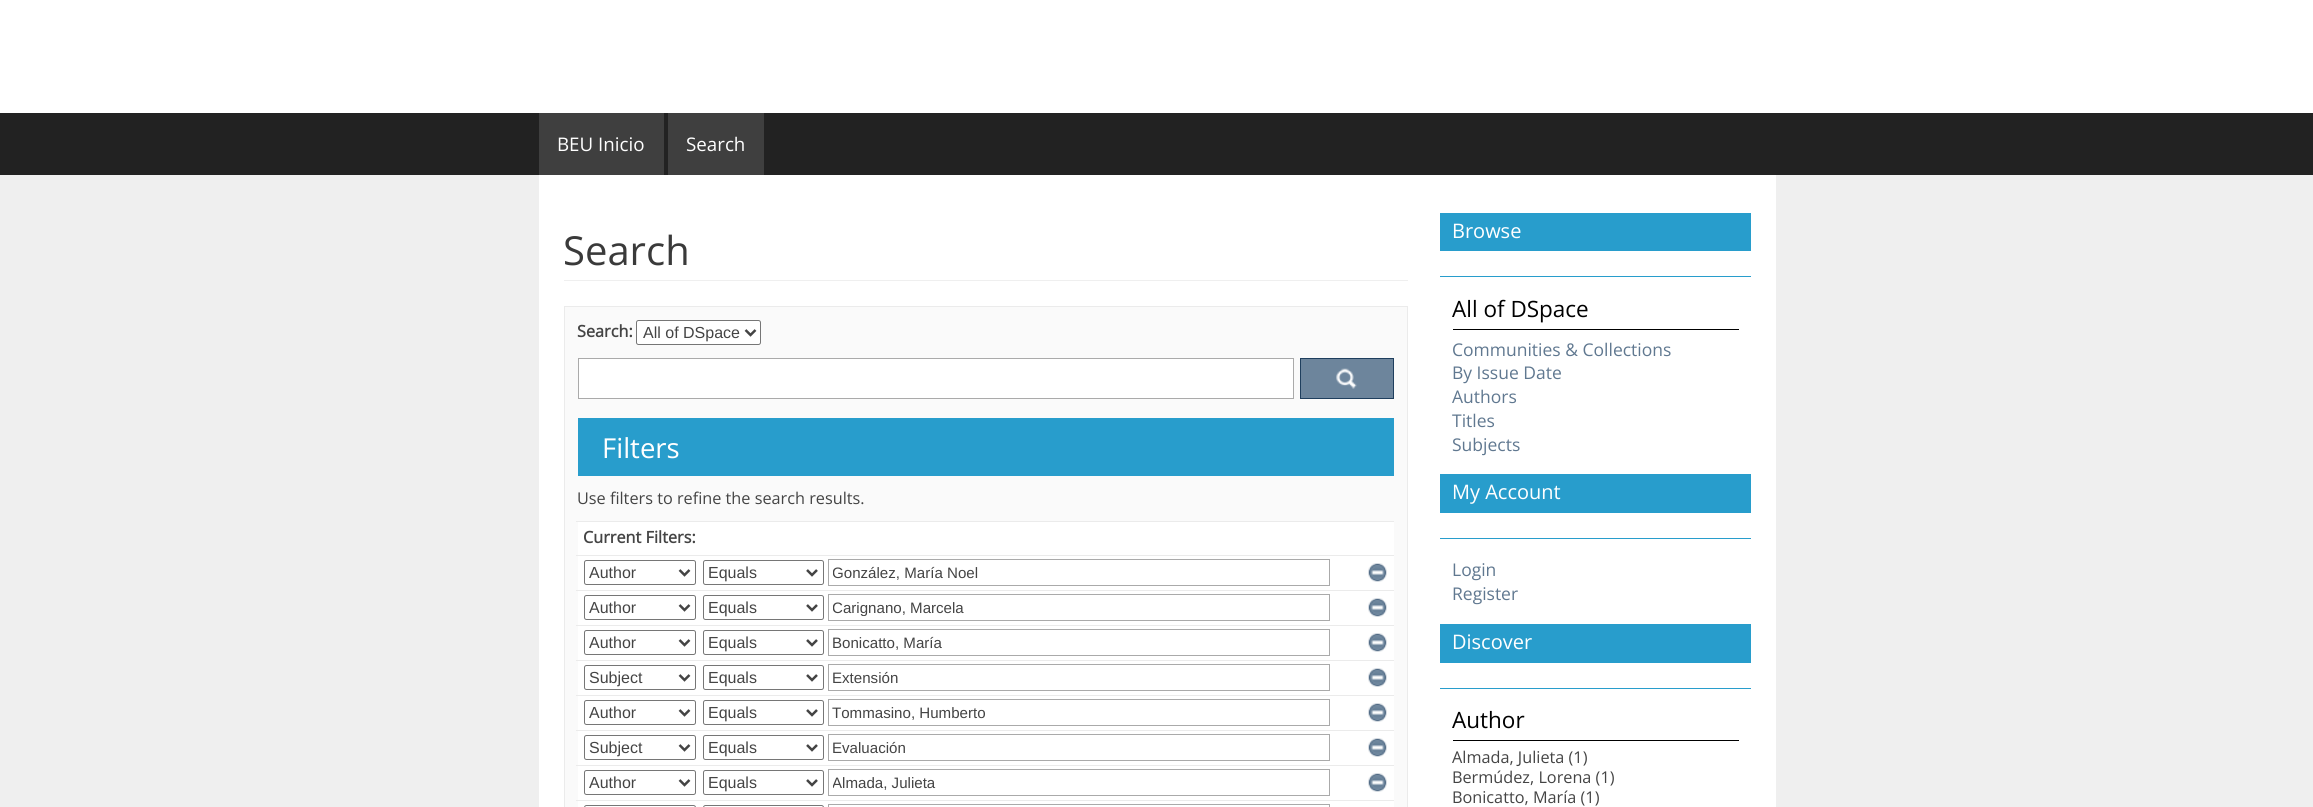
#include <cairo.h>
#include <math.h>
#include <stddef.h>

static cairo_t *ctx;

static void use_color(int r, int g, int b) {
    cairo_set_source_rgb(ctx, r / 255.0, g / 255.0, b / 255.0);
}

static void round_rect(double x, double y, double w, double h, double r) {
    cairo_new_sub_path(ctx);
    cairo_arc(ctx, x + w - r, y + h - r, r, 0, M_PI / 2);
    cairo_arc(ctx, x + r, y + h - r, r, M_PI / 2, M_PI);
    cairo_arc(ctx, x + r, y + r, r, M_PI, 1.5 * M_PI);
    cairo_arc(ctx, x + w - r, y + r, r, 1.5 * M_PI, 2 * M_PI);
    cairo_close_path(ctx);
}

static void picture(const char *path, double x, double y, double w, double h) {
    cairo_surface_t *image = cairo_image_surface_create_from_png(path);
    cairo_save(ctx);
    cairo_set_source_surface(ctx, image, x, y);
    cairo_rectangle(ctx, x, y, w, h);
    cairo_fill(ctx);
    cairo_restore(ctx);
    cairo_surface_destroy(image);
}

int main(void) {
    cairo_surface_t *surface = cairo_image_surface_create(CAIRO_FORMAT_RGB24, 2313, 807);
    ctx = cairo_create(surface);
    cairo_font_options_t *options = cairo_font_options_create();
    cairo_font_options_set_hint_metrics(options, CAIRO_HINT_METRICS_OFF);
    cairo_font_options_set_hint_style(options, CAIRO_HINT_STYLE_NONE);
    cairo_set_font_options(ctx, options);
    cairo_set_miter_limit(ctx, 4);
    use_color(255, 255, 255);
    cairo_paint(ctx);
    use_color(34, 34, 34);
    cairo_rectangle(ctx, 0, 113, 2313, 62);
    cairo_fill(ctx);
    use_color(63, 63, 63);
    cairo_rectangle(ctx, 539, 113, 125, 62);
    cairo_fill(ctx);
    cairo_select_font_face(ctx, "Open Sans", CAIRO_FONT_SLANT_NORMAL, CAIRO_FONT_WEIGHT_NORMAL);
    cairo_set_font_size(ctx, 18.75);
    use_color(255, 255, 255);
    cairo_move_to(ctx, 557, 151);
    cairo_show_text(ctx, "BEU Inicio");
    use_color(63, 63, 63);
    cairo_rectangle(ctx, 668, 113, 96, 62);
    cairo_fill(ctx);
    use_color(255, 255, 255);
    cairo_move_to(ctx, 686, 151);
    cairo_show_text(ctx, "Search");
    use_color(239, 239, 239);
    cairo_rectangle(ctx, 0, 175, 2313, 632);
    cairo_fill(ctx);
    use_color(255, 255, 255);
    cairo_rectangle(ctx, 539, 175, 1237, 632);
    cairo_fill(ctx);
    use_color(239, 239, 239);
    cairo_rectangle(ctx, 564, 280, 844, 1);
    cairo_fill(ctx);
    cairo_set_font_size(ctx, 40);
    use_color(58, 58, 58);
    cairo_move_to(ctx, 563, 265);
    cairo_show_text(ctx, "Search");
    use_color(250, 250, 250);
    cairo_rectangle(ctx, 564.5, 306.5, 843, 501);
    cairo_fill_preserve(ctx);
    use_color(235, 235, 235);
    cairo_set_line_width(ctx, 1);
    cairo_stroke(ctx);
    cairo_select_font_face(ctx, "Open Sans", CAIRO_FONT_SLANT_NORMAL, CAIRO_FONT_WEIGHT_BOLD);
    cairo_set_font_size(ctx, 16.25);
    use_color(68, 68, 68);
    cairo_move_to(ctx, 577, 337);
    cairo_show_text(ctx, "Search:");
    use_color(255, 255, 255);
    round_rect(636.5, 320.5, 124, 24, 2);
    cairo_fill_preserve(ctx);
    use_color(118, 118, 118);
    cairo_stroke(ctx);
    cairo_new_path(ctx);
    cairo_move_to(ctx, 745.5, 330);
    cairo_line_to(ctx, 750.5, 335);
    cairo_line_to(ctx, 755.5, 330);
    use_color(68, 68, 68);
    cairo_set_line_width(ctx, 2.5);
    cairo_stroke(ctx);
    cairo_select_font_face(ctx, "Liberation Sans", CAIRO_FONT_SLANT_NORMAL, CAIRO_FONT_WEIGHT_NORMAL);
    cairo_set_font_size(ctx, 16);
    cairo_move_to(ctx, 643, 338);
    cairo_show_text(ctx, "All of DSpace");
    use_color(255, 255, 255);
    cairo_rectangle(ctx, 578.5, 358.5, 715, 40);
    cairo_fill_preserve(ctx);
    use_color(170, 170, 170);
    cairo_set_line_width(ctx, 1);
    cairo_stroke(ctx);
    use_color(109, 133, 156);
    cairo_rectangle(ctx, 1301, 359, 92, 39);
    cairo_fill(ctx);
    picture("img1.png", 1336, 368, 21, 21);
    cairo_rectangle(ctx, 1300.5, 358.5, 93, 40);
    use_color(31, 63, 94);
    cairo_stroke(ctx);
    use_color(40, 157, 204);
    cairo_rectangle(ctx, 578, 418, 816, 58);
    cairo_fill(ctx);
    cairo_select_font_face(ctx, "Open Sans", CAIRO_FONT_SLANT_NORMAL, CAIRO_FONT_WEIGHT_NORMAL);
    cairo_set_font_size(ctx, 27.5);
    use_color(255, 255, 255);
    cairo_move_to(ctx, 602, 458);
    cairo_show_text(ctx, "Filters");
    cairo_set_font_size(ctx, 16.25);
    use_color(68, 68, 68);
    cairo_move_to(ctx, 577, 504);
    cairo_show_text(ctx, "Use filters to refine the search results.");
    use_color(255, 255, 255);
    cairo_rectangle(ctx, 578, 522, 816, 285);
    cairo_fill(ctx);
    use_color(235, 235, 235);
    cairo_rectangle(ctx, 576, 521, 818, 1);
    cairo_fill(ctx);
    cairo_select_font_face(ctx, "Open Sans", CAIRO_FONT_SLANT_NORMAL, CAIRO_FONT_WEIGHT_BOLD);
    use_color(68, 68, 68);
    cairo_move_to(ctx, 583, 543);
    cairo_show_text(ctx, "Current Filters:");
    use_color(235, 235, 235);
    cairo_rectangle(ctx, 576, 555, 818, 1);
    cairo_fill(ctx);
    round_rect(584.5, 560.5, 111, 24, 2);
    use_color(118, 118, 118);
    cairo_stroke(ctx);
    cairo_new_path(ctx);
    cairo_move_to(ctx, 679.5, 570);
    cairo_line_to(ctx, 684.5, 575);
    cairo_line_to(ctx, 689.5, 570);
    use_color(68, 68, 68);
    cairo_set_line_width(ctx, 2.5);
    cairo_stroke(ctx);
    cairo_select_font_face(ctx, "Liberation Sans", CAIRO_FONT_SLANT_NORMAL, CAIRO_FONT_WEIGHT_NORMAL);
    cairo_set_font_size(ctx, 16);
    cairo_move_to(ctx, 589, 578);
    cairo_show_text(ctx, "Author");
    round_rect(703.5, 560.5, 120, 24, 2);
    use_color(118, 118, 118);
    cairo_set_line_width(ctx, 1);
    cairo_stroke(ctx);
    cairo_new_path(ctx);
    cairo_move_to(ctx, 807, 570);
    cairo_line_to(ctx, 812, 575);
    cairo_line_to(ctx, 817, 570);
    use_color(68, 68, 68);
    cairo_set_line_width(ctx, 2.5);
    cairo_stroke(ctx);
    cairo_move_to(ctx, 708, 578);
    cairo_show_text(ctx, "Equals");
    cairo_rectangle(ctx, 828.5, 559.5, 501, 26);
    use_color(170, 170, 170);
    cairo_set_line_width(ctx, 1);
    cairo_stroke(ctx);
    cairo_save(ctx);
    cairo_rectangle(ctx, 833, 564, 492, 17);
    cairo_clip(ctx);
    cairo_set_font_size(ctx, 15.1);
    use_color(68, 68, 68);
    cairo_move_to(ctx, 832, 578);
    cairo_show_text(ctx, "González, María Noel");
    cairo_restore(ctx);
    picture("img2.png", 1368, 563, 19, 19);
    use_color(235, 235, 235);
    cairo_rectangle(ctx, 576, 590, 818, 1);
    cairo_fill(ctx);
    round_rect(584.5, 595.5, 111, 24, 2);
    use_color(118, 118, 118);
    cairo_stroke(ctx);
    cairo_new_path(ctx);
    cairo_move_to(ctx, 679.5, 605);
    cairo_line_to(ctx, 684.5, 610);
    cairo_line_to(ctx, 689.5, 605);
    use_color(68, 68, 68);
    cairo_set_line_width(ctx, 2.5);
    cairo_stroke(ctx);
    cairo_move_to(ctx, 589, 613);
    cairo_show_text(ctx, "Author");
    round_rect(703.5, 595.5, 120, 24, 2);
    use_color(118, 118, 118);
    cairo_set_line_width(ctx, 1);
    cairo_stroke(ctx);
    cairo_new_path(ctx);
    cairo_move_to(ctx, 807, 605);
    cairo_line_to(ctx, 812, 610);
    cairo_line_to(ctx, 817, 605);
    use_color(68, 68, 68);
    cairo_set_line_width(ctx, 2.5);
    cairo_stroke(ctx);
    cairo_move_to(ctx, 708, 613);
    cairo_show_text(ctx, "Equals");
    cairo_rectangle(ctx, 828.5, 594.5, 501, 26);
    use_color(170, 170, 170);
    cairo_set_line_width(ctx, 1);
    cairo_stroke(ctx);
    cairo_save(ctx);
    cairo_rectangle(ctx, 833, 599, 492, 17);
    cairo_clip(ctx);
    cairo_set_font_size(ctx, 15.1);
    use_color(68, 68, 68);
    cairo_move_to(ctx, 832, 613);
    cairo_show_text(ctx, "Carignano, Marcela");
    cairo_restore(ctx);
    picture("img2.png", 1368, 598, 19, 19);
    use_color(235, 235, 235);
    cairo_rectangle(ctx, 576, 625, 818, 1);
    cairo_fill(ctx);
    round_rect(584.5, 630.5, 111, 24, 2);
    use_color(118, 118, 118);
    cairo_stroke(ctx);
    cairo_new_path(ctx);
    cairo_move_to(ctx, 679.5, 640);
    cairo_line_to(ctx, 684.5, 645);
    cairo_line_to(ctx, 689.5, 640);
    use_color(68, 68, 68);
    cairo_set_line_width(ctx, 2.5);
    cairo_stroke(ctx);
    cairo_move_to(ctx, 589, 648);
    cairo_show_text(ctx, "Author");
    round_rect(703.5, 630.5, 120, 24, 2);
    use_color(118, 118, 118);
    cairo_set_line_width(ctx, 1);
    cairo_stroke(ctx);
    cairo_new_path(ctx);
    cairo_move_to(ctx, 807, 640);
    cairo_line_to(ctx, 812, 645);
    cairo_line_to(ctx, 817, 640);
    use_color(68, 68, 68);
    cairo_set_line_width(ctx, 2.5);
    cairo_stroke(ctx);
    cairo_move_to(ctx, 708, 648);
    cairo_show_text(ctx, "Equals");
    cairo_rectangle(ctx, 828.5, 629.5, 501, 26);
    use_color(170, 170, 170);
    cairo_set_line_width(ctx, 1);
    cairo_stroke(ctx);
    cairo_set_font_size(ctx, 15.1);
    use_color(68, 68, 68);
    cairo_move_to(ctx, 832, 648);
    cairo_show_text(ctx, "Bonicatto, María");
    picture("img2.png", 1368, 633, 19, 19);
    use_color(235, 235, 235);
    cairo_rectangle(ctx, 576, 660, 818, 1);
    cairo_fill(ctx);
    round_rect(584.5, 665.5, 111, 24, 2);
    use_color(118, 118, 118);
    cairo_stroke(ctx);
    cairo_new_path(ctx);
    cairo_move_to(ctx, 679.5, 675);
    cairo_line_to(ctx, 684.5, 680);
    cairo_line_to(ctx, 689.5, 675);
    use_color(68, 68, 68);
    cairo_set_line_width(ctx, 2.5);
    cairo_stroke(ctx);
    cairo_set_font_size(ctx, 16);
    cairo_move_to(ctx, 589, 683);
    cairo_show_text(ctx, "Subject");
    round_rect(703.5, 665.5, 120, 24, 2);
    use_color(118, 118, 118);
    cairo_set_line_width(ctx, 1);
    cairo_stroke(ctx);
    cairo_new_path(ctx);
    cairo_move_to(ctx, 807, 675);
    cairo_line_to(ctx, 812, 680);
    cairo_line_to(ctx, 817, 675);
    use_color(68, 68, 68);
    cairo_set_line_width(ctx, 2.5);
    cairo_stroke(ctx);
    cairo_move_to(ctx, 708, 683);
    cairo_show_text(ctx, "Equals");
    cairo_rectangle(ctx, 828.5, 664.5, 501, 26);
    use_color(170, 170, 170);
    cairo_set_line_width(ctx, 1);
    cairo_stroke(ctx);
    cairo_set_font_size(ctx, 15.1);
    use_color(68, 68, 68);
    cairo_move_to(ctx, 832, 683);
    cairo_show_text(ctx, "Extensión");
    picture("img2.png", 1368, 668, 19, 19);
    use_color(235, 235, 235);
    cairo_rectangle(ctx, 576, 695, 818, 1);
    cairo_fill(ctx);
    round_rect(584.5, 700.5, 111, 24, 2);
    use_color(118, 118, 118);
    cairo_stroke(ctx);
    cairo_new_path(ctx);
    cairo_move_to(ctx, 679.5, 710);
    cairo_line_to(ctx, 684.5, 715);
    cairo_line_to(ctx, 689.5, 710);
    use_color(68, 68, 68);
    cairo_set_line_width(ctx, 2.5);
    cairo_stroke(ctx);
    cairo_set_font_size(ctx, 16);
    cairo_move_to(ctx, 589, 718);
    cairo_show_text(ctx, "Author");
    round_rect(703.5, 700.5, 120, 24, 2);
    use_color(118, 118, 118);
    cairo_set_line_width(ctx, 1);
    cairo_stroke(ctx);
    cairo_new_path(ctx);
    cairo_move_to(ctx, 807, 710);
    cairo_line_to(ctx, 812, 715);
    cairo_line_to(ctx, 817, 710);
    use_color(68, 68, 68);
    cairo_set_line_width(ctx, 2.5);
    cairo_stroke(ctx);
    cairo_move_to(ctx, 708, 718);
    cairo_show_text(ctx, "Equals");
    cairo_rectangle(ctx, 828.5, 699.5, 501, 26);
    use_color(170, 170, 170);
    cairo_set_line_width(ctx, 1);
    cairo_stroke(ctx);
    cairo_set_font_size(ctx, 15.1);
    use_color(68, 68, 68);
    cairo_move_to(ctx, 832, 718);
    cairo_show_text(ctx, "Tommasino, Humberto");
    picture("img2.png", 1368, 703, 19, 19);
    use_color(235, 235, 235);
    cairo_rectangle(ctx, 576, 730, 818, 1);
    cairo_fill(ctx);
    round_rect(584.5, 735.5, 111, 24, 2);
    use_color(118, 118, 118);
    cairo_stroke(ctx);
    cairo_new_path(ctx);
    cairo_move_to(ctx, 679.5, 745);
    cairo_line_to(ctx, 684.5, 750);
    cairo_line_to(ctx, 689.5, 745);
    use_color(68, 68, 68);
    cairo_set_line_width(ctx, 2.5);
    cairo_stroke(ctx);
    cairo_set_font_size(ctx, 16);
    cairo_move_to(ctx, 589, 753);
    cairo_show_text(ctx, "Subject");
    round_rect(703.5, 735.5, 120, 24, 2);
    use_color(118, 118, 118);
    cairo_set_line_width(ctx, 1);
    cairo_stroke(ctx);
    cairo_new_path(ctx);
    cairo_move_to(ctx, 807, 745);
    cairo_line_to(ctx, 812, 750);
    cairo_line_to(ctx, 817, 745);
    use_color(68, 68, 68);
    cairo_set_line_width(ctx, 2.5);
    cairo_stroke(ctx);
    cairo_move_to(ctx, 708, 753);
    cairo_show_text(ctx, "Equals");
    cairo_rectangle(ctx, 828.5, 734.5, 501, 26);
    use_color(170, 170, 170);
    cairo_set_line_width(ctx, 1);
    cairo_stroke(ctx);
    cairo_set_font_size(ctx, 15.1);
    use_color(68, 68, 68);
    cairo_move_to(ctx, 832, 753);
    cairo_show_text(ctx, "Evaluación");
    picture("img2.png", 1368, 738, 19, 19);
    use_color(235, 235, 235);
    cairo_rectangle(ctx, 576, 765, 818, 1);
    cairo_fill(ctx);
    round_rect(584.5, 770.5, 111, 24, 2);
    use_color(118, 118, 118);
    cairo_stroke(ctx);
    cairo_new_path(ctx);
    cairo_move_to(ctx, 679.5, 780);
    cairo_line_to(ctx, 684.5, 785);
    cairo_line_to(ctx, 689.5, 780);
    use_color(68, 68, 68);
    cairo_set_line_width(ctx, 2.5);
    cairo_stroke(ctx);
    cairo_set_font_size(ctx, 16);
    cairo_move_to(ctx, 589, 788);
    cairo_show_text(ctx, "Author");
    round_rect(703.5, 770.5, 120, 24, 2);
    use_color(118, 118, 118);
    cairo_set_line_width(ctx, 1);
    cairo_stroke(ctx);
    cairo_new_path(ctx);
    cairo_move_to(ctx, 807, 780);
    cairo_line_to(ctx, 812, 785);
    cairo_line_to(ctx, 817, 780);
    use_color(68, 68, 68);
    cairo_set_line_width(ctx, 2.5);
    cairo_stroke(ctx);
    cairo_move_to(ctx, 708, 788);
    cairo_show_text(ctx, "Equals");
    cairo_rectangle(ctx, 828.5, 769.5, 501, 26);
    use_color(170, 170, 170);
    cairo_set_line_width(ctx, 1);
    cairo_stroke(ctx);
    cairo_save(ctx);
    cairo_rectangle(ctx, 833, 774, 492, 17);
    cairo_clip(ctx);
    cairo_set_font_size(ctx, 15.1);
    use_color(68, 68, 68);
    cairo_move_to(ctx, 832, 788);
    cairo_show_text(ctx, "Almada, Julieta");
    cairo_restore(ctx);
    picture("img3.png", 1368, 773, 19, 19);
    use_color(235, 235, 235);
    cairo_rectangle(ctx, 576, 800, 818, 1);
    cairo_fill(ctx);
    round_rect(584.5, 805.5, 111, 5, 2);
    use_color(118, 118, 118);
    cairo_stroke(ctx);
    round_rect(703.5, 805.5, 120, 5, 2);
    cairo_stroke(ctx);
    cairo_rectangle(ctx, 828.5, 804.5, 501, 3);
    use_color(170, 170, 170);
    cairo_stroke(ctx);
    use_color(40, 157, 204);
    cairo_rectangle(ctx, 1440, 213, 311, 38);
    cairo_fill(ctx);
    cairo_select_font_face(ctx, "Open Sans", CAIRO_FONT_SLANT_NORMAL, CAIRO_FONT_WEIGHT_NORMAL);
    cairo_set_font_size(ctx, 20);
    use_color(255, 255, 255);
    cairo_move_to(ctx, 1452, 238);
    cairo_show_text(ctx, "Browse");
    use_color(40, 157, 204);
    cairo_rectangle(ctx, 1440, 276, 311, 1);
    cairo_fill(ctx);
    use_color(0, 0, 0);
    cairo_rectangle(ctx, 1453, 329, 286, 1);
    cairo_fill(ctx);
    cairo_set_font_size(ctx, 22.5);
    cairo_move_to(ctx, 1452, 317);
    cairo_show_text(ctx, "All of DSpace");
    cairo_set_font_size(ctx, 17.5);
    use_color(96, 120, 144);
    cairo_move_to(ctx, 1452, 356);
    cairo_show_text(ctx, "Communities & Collections");
    cairo_move_to(ctx, 1452, 379);
    cairo_show_text(ctx, "By Issue Date");
    cairo_move_to(ctx, 1452, 403);
    cairo_show_text(ctx, "Authors");
    cairo_move_to(ctx, 1452, 427);
    cairo_show_text(ctx, "Titles");
    cairo_move_to(ctx, 1452, 451);
    cairo_show_text(ctx, "Subjects");
    use_color(40, 157, 204);
    cairo_rectangle(ctx, 1440, 474, 311, 39);
    cairo_fill(ctx);
    cairo_set_font_size(ctx, 20);
    use_color(255, 255, 255);
    cairo_move_to(ctx, 1452, 499);
    cairo_show_text(ctx, "My Account");
    use_color(40, 157, 204);
    cairo_rectangle(ctx, 1440, 538, 311, 1);
    cairo_fill(ctx);
    cairo_set_font_size(ctx, 17.5);
    use_color(96, 120, 144);
    cairo_move_to(ctx, 1452, 576);
    cairo_show_text(ctx, "Login");
    cairo_move_to(ctx, 1452, 600);
    cairo_show_text(ctx, "Register");
    use_color(40, 157, 204);
    cairo_rectangle(ctx, 1440, 624, 311, 39);
    cairo_fill(ctx);
    cairo_set_font_size(ctx, 20);
    use_color(255, 255, 255);
    cairo_move_to(ctx, 1452, 649);
    cairo_show_text(ctx, "Discover");
    use_color(40, 157, 204);
    cairo_rectangle(ctx, 1440, 688, 311, 1);
    cairo_fill(ctx);
    use_color(0, 0, 0);
    cairo_rectangle(ctx, 1453, 740, 286, 1);
    cairo_fill(ctx);
    cairo_set_font_size(ctx, 22.5);
    cairo_move_to(ctx, 1452, 728);
    cairo_show_text(ctx, "Author");
    cairo_set_font_size(ctx, 16.25);
    use_color(68, 68, 68);
    cairo_move_to(ctx, 1452, 763);
    cairo_show_text(ctx, "Almada, Julieta (1)");
    cairo_move_to(ctx, 1452, 783);
    cairo_show_text(ctx, "Bermúdez, Lorena (1)");
    cairo_move_to(ctx, 1452, 803);
    cairo_show_text(ctx, "Bonicatto, María (1)");
    cairo_surface_write_to_png(surface, "result.png");
    cairo_font_options_destroy(options);
    cairo_destroy(ctx);
    cairo_surface_destroy(surface);
    return 0;
}
